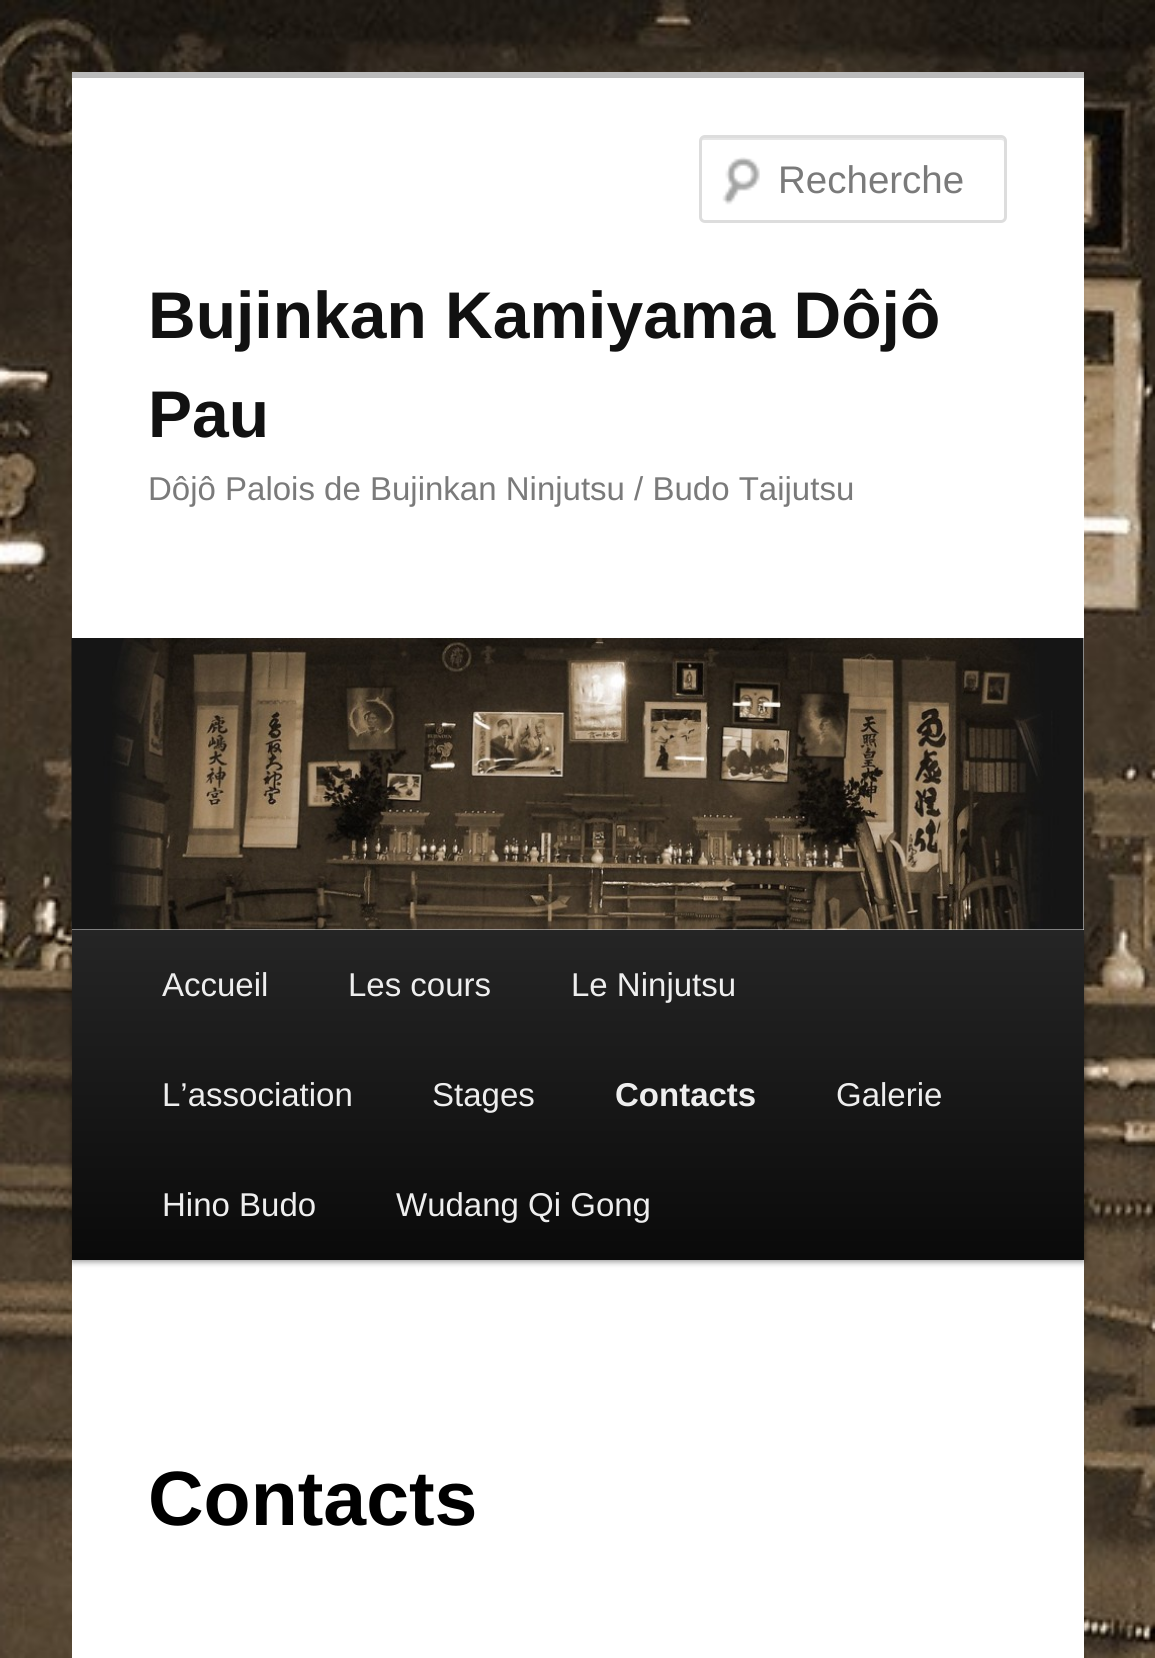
#include <cairo.h>
#include <math.h>
#include <stddef.h>

static cairo_t *ctx;

static void use_color(int r, int g, int b) {
    cairo_set_source_rgb(ctx, r / 255.0, g / 255.0, b / 255.0);
}

static void round_rect(double x, double y, double w, double h, double r) {
    cairo_new_sub_path(ctx);
    cairo_arc(ctx, x + w - r, y + h - r, r, 0, M_PI / 2);
    cairo_arc(ctx, x + r, y + h - r, r, M_PI / 2, M_PI);
    cairo_arc(ctx, x + r, y + r, r, M_PI, 1.5 * M_PI);
    cairo_arc(ctx, x + w - r, y + r, r, 1.5 * M_PI, 2 * M_PI);
    cairo_close_path(ctx);
}

static void shadow(double x, double y, double w, double h, double r, double blur, double alpha) {
    cairo_push_group_with_content(ctx, CAIRO_CONTENT_ALPHA);
    cairo_set_operator(ctx, CAIRO_OPERATOR_SOURCE);
    for (int i = 15; i >= -15 && fmin(w, h) + blur * i / 3 > 0; i -= 2) {
        double e = blur * i / 6;
        cairo_set_source_rgba(ctx, 0, 0, 0, alpha * erfc((i - 1) / 8.5) / 2);
        round_rect(x - e, y - e, w + 2 * e, h + 2 * e, fmax(0, fmin(r + e + blur * .6, fmin(w, h) / 2 + e)));
        cairo_fill(ctx);
    }
    cairo_pattern_t *soft = cairo_pop_group(ctx);
    cairo_mask(ctx, soft);
    cairo_pattern_destroy(soft);
}

static void picture(const char *path, double x, double y, double w, double h) {
    cairo_surface_t *image = cairo_image_surface_create_from_png(path);
    cairo_save(ctx);
    cairo_set_source_surface(ctx, image, x, y);
    cairo_rectangle(ctx, x, y, w, h);
    cairo_fill(ctx);
    cairo_restore(ctx);
    cairo_surface_destroy(image);
}

int main(void) {
    cairo_surface_t *surface = cairo_image_surface_create(CAIRO_FORMAT_RGB24, 1155, 1658);
    ctx = cairo_create(surface);
    cairo_font_options_t *options = cairo_font_options_create();
    cairo_font_options_set_hint_metrics(options, CAIRO_HINT_METRICS_OFF);
    cairo_font_options_set_hint_style(options, CAIRO_HINT_STYLE_NONE);
    cairo_set_font_options(ctx, options);
    cairo_set_miter_limit(ctx, 4);
    cairo_pattern_t *gradient;
    use_color(255, 255, 255);
    cairo_paint(ctx);
    picture("img1.png", 0, 0, 1155, 1658);
    use_color(255, 255, 255);
    cairo_rectangle(ctx, 72, 78, 1012, 1580);
    cairo_fill(ctx);
    use_color(187, 187, 187);
    cairo_rectangle(ctx, 72, 72, 1012, 6);
    cairo_fill(ctx);
    picture("img2.png", 722, 157, 38, 48);
    use_color(230, 230, 230);
    cairo_new_path(ctx);
    cairo_move_to(ctx, 704, 140);
    cairo_line_to(ctx, 1001, 140);
    cairo_curve_to(ctx, 1003, 140, 1004, 141, 1004, 143);
    cairo_curve_to(ctx, 1004, 141, 1004, 138, 1001, 138);
    cairo_line_to(ctx, 704, 138);
    cairo_curve_to(ctx, 701, 138, 701, 141, 701, 143);
    cairo_curve_to(ctx, 701, 141, 702, 140, 704, 140);
    cairo_close_path(ctx);
    cairo_fill(ctx);
    round_rect(700.5, 136.5, 305, 85, 4.5);
    use_color(221, 221, 221);
    cairo_set_line_width(ctx, 3);
    cairo_stroke(ctx);
    cairo_select_font_face(ctx, "Liberation Sans", CAIRO_FONT_SLANT_NORMAL, CAIRO_FONT_WEIGHT_NORMAL);
    cairo_set_font_size(ctx, 38.5);
    use_color(122, 122, 122);
    cairo_move_to(ctx, 778, 193);
    cairo_show_text(ctx, "Recherche");
    cairo_select_font_face(ctx, "Liberation Sans", CAIRO_FONT_SLANT_NORMAL, CAIRO_FONT_WEIGHT_BOLD);
    cairo_set_font_size(ctx, 66);
    use_color(17, 17, 17);
    cairo_move_to(ctx, 148, 338);
    cairo_show_text(ctx, "Bujinkan Kamiyama Dôjô");
    cairo_move_to(ctx, 148, 437);
    cairo_show_text(ctx, "Pau");
    cairo_select_font_face(ctx, "Liberation Sans", CAIRO_FONT_SLANT_NORMAL, CAIRO_FONT_WEIGHT_NORMAL);
    cairo_set_font_size(ctx, 33);
    use_color(122, 122, 122);
    cairo_move_to(ctx, 148, 500);
    cairo_show_text(ctx, "Dôjô Palois de Bujinkan Ninjutsu / Budo Taijutsu");
    use_color(0, 0, 0);
    shadow(72, 932, 1012, 330, 0, 3, 0.4);
    picture("img3.png", 71, 638, 1013, 292);
    gradient = cairo_pattern_create_linear(578, 930, 578, 1260);
    cairo_pattern_add_color_stop_rgba(gradient, 0, 0.145, 0.145, 0.145, 1);
    cairo_pattern_add_color_stop_rgba(gradient, 1, 0.039, 0.039, 0.039, 1);
    cairo_set_source(ctx, gradient);
    cairo_pattern_destroy(gradient);
    cairo_rectangle(ctx, 72, 930, 1012, 330);
    cairo_fill(ctx);
    use_color(238, 238, 238);
    cairo_move_to(ctx, 162, 996);
    cairo_show_text(ctx, "Accueil");
    cairo_move_to(ctx, 348, 996);
    cairo_show_text(ctx, "Les cours");
    cairo_move_to(ctx, 571, 996);
    cairo_show_text(ctx, "Le Ninjutsu");
    cairo_move_to(ctx, 162, 1106);
    cairo_show_text(ctx, "L’association");
    cairo_move_to(ctx, 432, 1106);
    cairo_show_text(ctx, "Stages");
    cairo_select_font_face(ctx, "Liberation Sans", CAIRO_FONT_SLANT_NORMAL, CAIRO_FONT_WEIGHT_BOLD);
    cairo_move_to(ctx, 615, 1106);
    cairo_show_text(ctx, "Contacts");
    cairo_select_font_face(ctx, "Liberation Sans", CAIRO_FONT_SLANT_NORMAL, CAIRO_FONT_WEIGHT_NORMAL);
    cairo_move_to(ctx, 836, 1106);
    cairo_show_text(ctx, "Galerie");
    cairo_move_to(ctx, 162, 1216);
    cairo_show_text(ctx, "Hino Budo");
    cairo_move_to(ctx, 396, 1216);
    cairo_show_text(ctx, "Wudang Qi Gong");
    cairo_select_font_face(ctx, "Liberation Sans", CAIRO_FONT_SLANT_NORMAL, CAIRO_FONT_WEIGHT_BOLD);
    cairo_set_font_size(ctx, 77);
    use_color(0, 0, 0);
    cairo_move_to(ctx, 148, 1525);
    cairo_show_text(ctx, "Contacts");
    cairo_surface_write_to_png(surface, "result.png");
    cairo_font_options_destroy(options);
    cairo_destroy(ctx);
    cairo_surface_destroy(surface);
    return 0;
}
